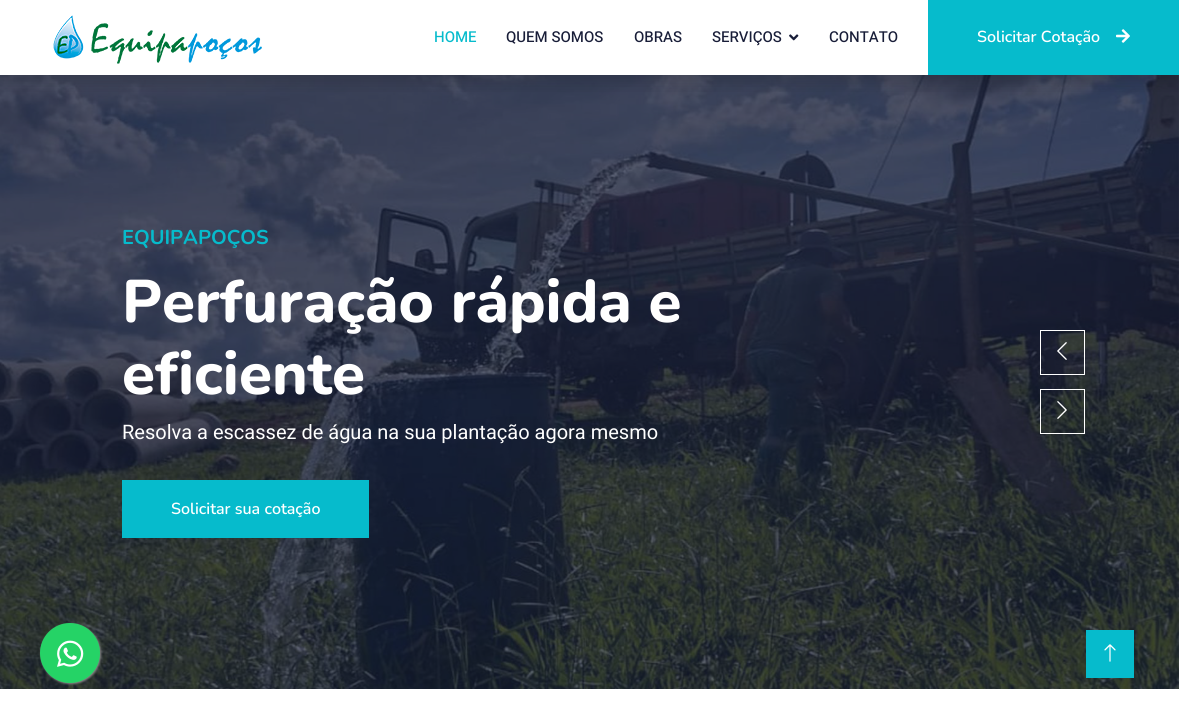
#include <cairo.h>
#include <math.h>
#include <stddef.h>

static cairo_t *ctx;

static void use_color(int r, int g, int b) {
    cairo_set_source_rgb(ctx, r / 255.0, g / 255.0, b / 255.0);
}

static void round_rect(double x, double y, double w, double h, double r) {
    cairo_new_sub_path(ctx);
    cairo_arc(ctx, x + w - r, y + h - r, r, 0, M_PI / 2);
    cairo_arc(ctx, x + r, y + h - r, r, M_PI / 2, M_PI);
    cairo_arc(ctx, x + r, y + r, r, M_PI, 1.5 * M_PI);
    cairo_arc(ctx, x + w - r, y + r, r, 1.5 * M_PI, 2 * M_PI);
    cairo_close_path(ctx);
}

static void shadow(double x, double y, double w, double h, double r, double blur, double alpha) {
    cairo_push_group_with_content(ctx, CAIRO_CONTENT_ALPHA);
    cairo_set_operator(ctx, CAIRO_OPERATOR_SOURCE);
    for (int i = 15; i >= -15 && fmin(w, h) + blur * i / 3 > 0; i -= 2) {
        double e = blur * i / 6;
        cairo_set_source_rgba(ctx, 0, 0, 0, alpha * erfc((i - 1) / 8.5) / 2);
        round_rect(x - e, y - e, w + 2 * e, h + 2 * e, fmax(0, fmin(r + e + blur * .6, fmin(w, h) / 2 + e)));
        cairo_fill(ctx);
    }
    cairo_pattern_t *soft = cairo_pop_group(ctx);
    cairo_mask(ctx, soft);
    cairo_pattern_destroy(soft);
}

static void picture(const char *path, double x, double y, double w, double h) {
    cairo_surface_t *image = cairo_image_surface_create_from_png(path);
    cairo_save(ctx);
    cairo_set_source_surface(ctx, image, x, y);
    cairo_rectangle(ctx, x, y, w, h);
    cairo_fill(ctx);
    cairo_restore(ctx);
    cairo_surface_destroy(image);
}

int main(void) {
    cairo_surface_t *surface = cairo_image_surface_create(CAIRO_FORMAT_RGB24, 1179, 723);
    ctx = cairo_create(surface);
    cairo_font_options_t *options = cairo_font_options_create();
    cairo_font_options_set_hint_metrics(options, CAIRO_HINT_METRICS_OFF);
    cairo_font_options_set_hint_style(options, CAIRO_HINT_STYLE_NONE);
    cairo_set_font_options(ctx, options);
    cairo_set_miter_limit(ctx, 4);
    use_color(255, 255, 255);
    cairo_paint(ctx);
    picture("img4.png", 0, 75, 1179, 614);
    cairo_save(ctx);
    cairo_rectangle(ctx, 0, 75, 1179, 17);
    cairo_clip(ctx);
    use_color(0, 0, 0);
    shadow(0, 8, 1179, 75, 0, 8, 0.15);
    cairo_restore(ctx);
    picture("img1.png", 53, 15, 209, 49);
    cairo_select_font_face(ctx, "Heebo Medium", CAIRO_FONT_SLANT_NORMAL, CAIRO_FONT_WEIGHT_NORMAL);
    cairo_set_font_size(ctx, 15);
    use_color(6, 187, 204);
    cairo_move_to(ctx, 434, 42);
    cairo_show_text(ctx, "HOME");
    use_color(24, 29, 56);
    cairo_move_to(ctx, 506, 42);
    cairo_show_text(ctx, "QUEM SOMOS");
    cairo_move_to(ctx, 634, 42);
    cairo_show_text(ctx, "OBRAS");
    cairo_move_to(ctx, 712, 42);
    cairo_show_text(ctx, "SERVIÇOS");
    picture("img2.png", 789, 34, 10, 7);
    cairo_move_to(ctx, 829, 42);
    cairo_show_text(ctx, "CONTATO");
    use_color(6, 187, 204);
    cairo_rectangle(ctx, 928, 0, 251, 75);
    cairo_fill(ctx);
    cairo_select_font_face(ctx, "Nunito SemiBold", CAIRO_FONT_SLANT_NORMAL, CAIRO_FONT_WEIGHT_NORMAL);
    cairo_set_font_size(ctx, 16);
    use_color(255, 255, 255);
    cairo_move_to(ctx, 977, 42);
    cairo_show_text(ctx, "Solicitar Cotação");
    picture("img3.png", 1116, 29, 14, 14);
    cairo_select_font_face(ctx, "Nunito", CAIRO_FONT_SLANT_NORMAL, CAIRO_FONT_WEIGHT_BOLD);
    cairo_set_font_size(ctx, 20);
    use_color(6, 187, 204);
    cairo_move_to(ctx, 122, 244);
    cairo_show_text(ctx, "EQUIPAPOÇOS");
    cairo_select_font_face(ctx, "Nunito ExtraBold", CAIRO_FONT_SLANT_NORMAL, CAIRO_FONT_WEIGHT_NORMAL);
    cairo_set_font_size(ctx, 60.1);
    use_color(255, 255, 255);
    cairo_move_to(ctx, 122, 322);
    cairo_show_text(ctx, "Perfuração rápida e");
    cairo_move_to(ctx, 122, 394);
    cairo_show_text(ctx, "eficiente");
    cairo_select_font_face(ctx, "Heebo", CAIRO_FONT_SLANT_NORMAL, CAIRO_FONT_WEIGHT_NORMAL);
    cairo_set_font_size(ctx, 20);
    cairo_move_to(ctx, 122, 439);
    cairo_show_text(ctx, "Resolva a escassez de água na sua plantação agora mesmo");
    use_color(6, 187, 204);
    cairo_rectangle(ctx, 122, 480, 247, 58);
    cairo_fill(ctx);
    cairo_select_font_face(ctx, "Nunito SemiBold", CAIRO_FONT_SLANT_NORMAL, CAIRO_FONT_WEIGHT_NORMAL);
    cairo_set_font_size(ctx, 16);
    use_color(255, 255, 255);
    cairo_move_to(ctx, 171, 514);
    cairo_show_text(ctx, "Solicitar sua cotação");
    cairo_rectangle(ctx, 1040.5, 330.5, 44, 44);
    cairo_set_line_width(ctx, 1);
    cairo_stroke(ctx);
    picture("img5.png", 1057, 342, 10, 18);
    cairo_rectangle(ctx, 1040.5, 389.5, 44, 44);
    cairo_stroke(ctx);
    picture("img6.png", 1057, 401, 10, 18);
    use_color(136, 136, 136);
    shadow(41, 624, 60, 60, 30, 1, 1);
    use_color(37, 211, 102);
    cairo_arc(ctx, 70, 653, 30, 0, 2 * M_PI);
    cairo_fill(ctx);
    picture("img7.png", 57, 640, 27, 27);
    use_color(6, 187, 204);
    cairo_rectangle(ctx, 1086, 630, 48, 48);
    cairo_fill(ctx);
    picture("img8.png", 1104, 644, 12, 18);
    cairo_surface_write_to_png(surface, "result.png");
    cairo_font_options_destroy(options);
    cairo_destroy(ctx);
    cairo_surface_destroy(surface);
    return 0;
}
